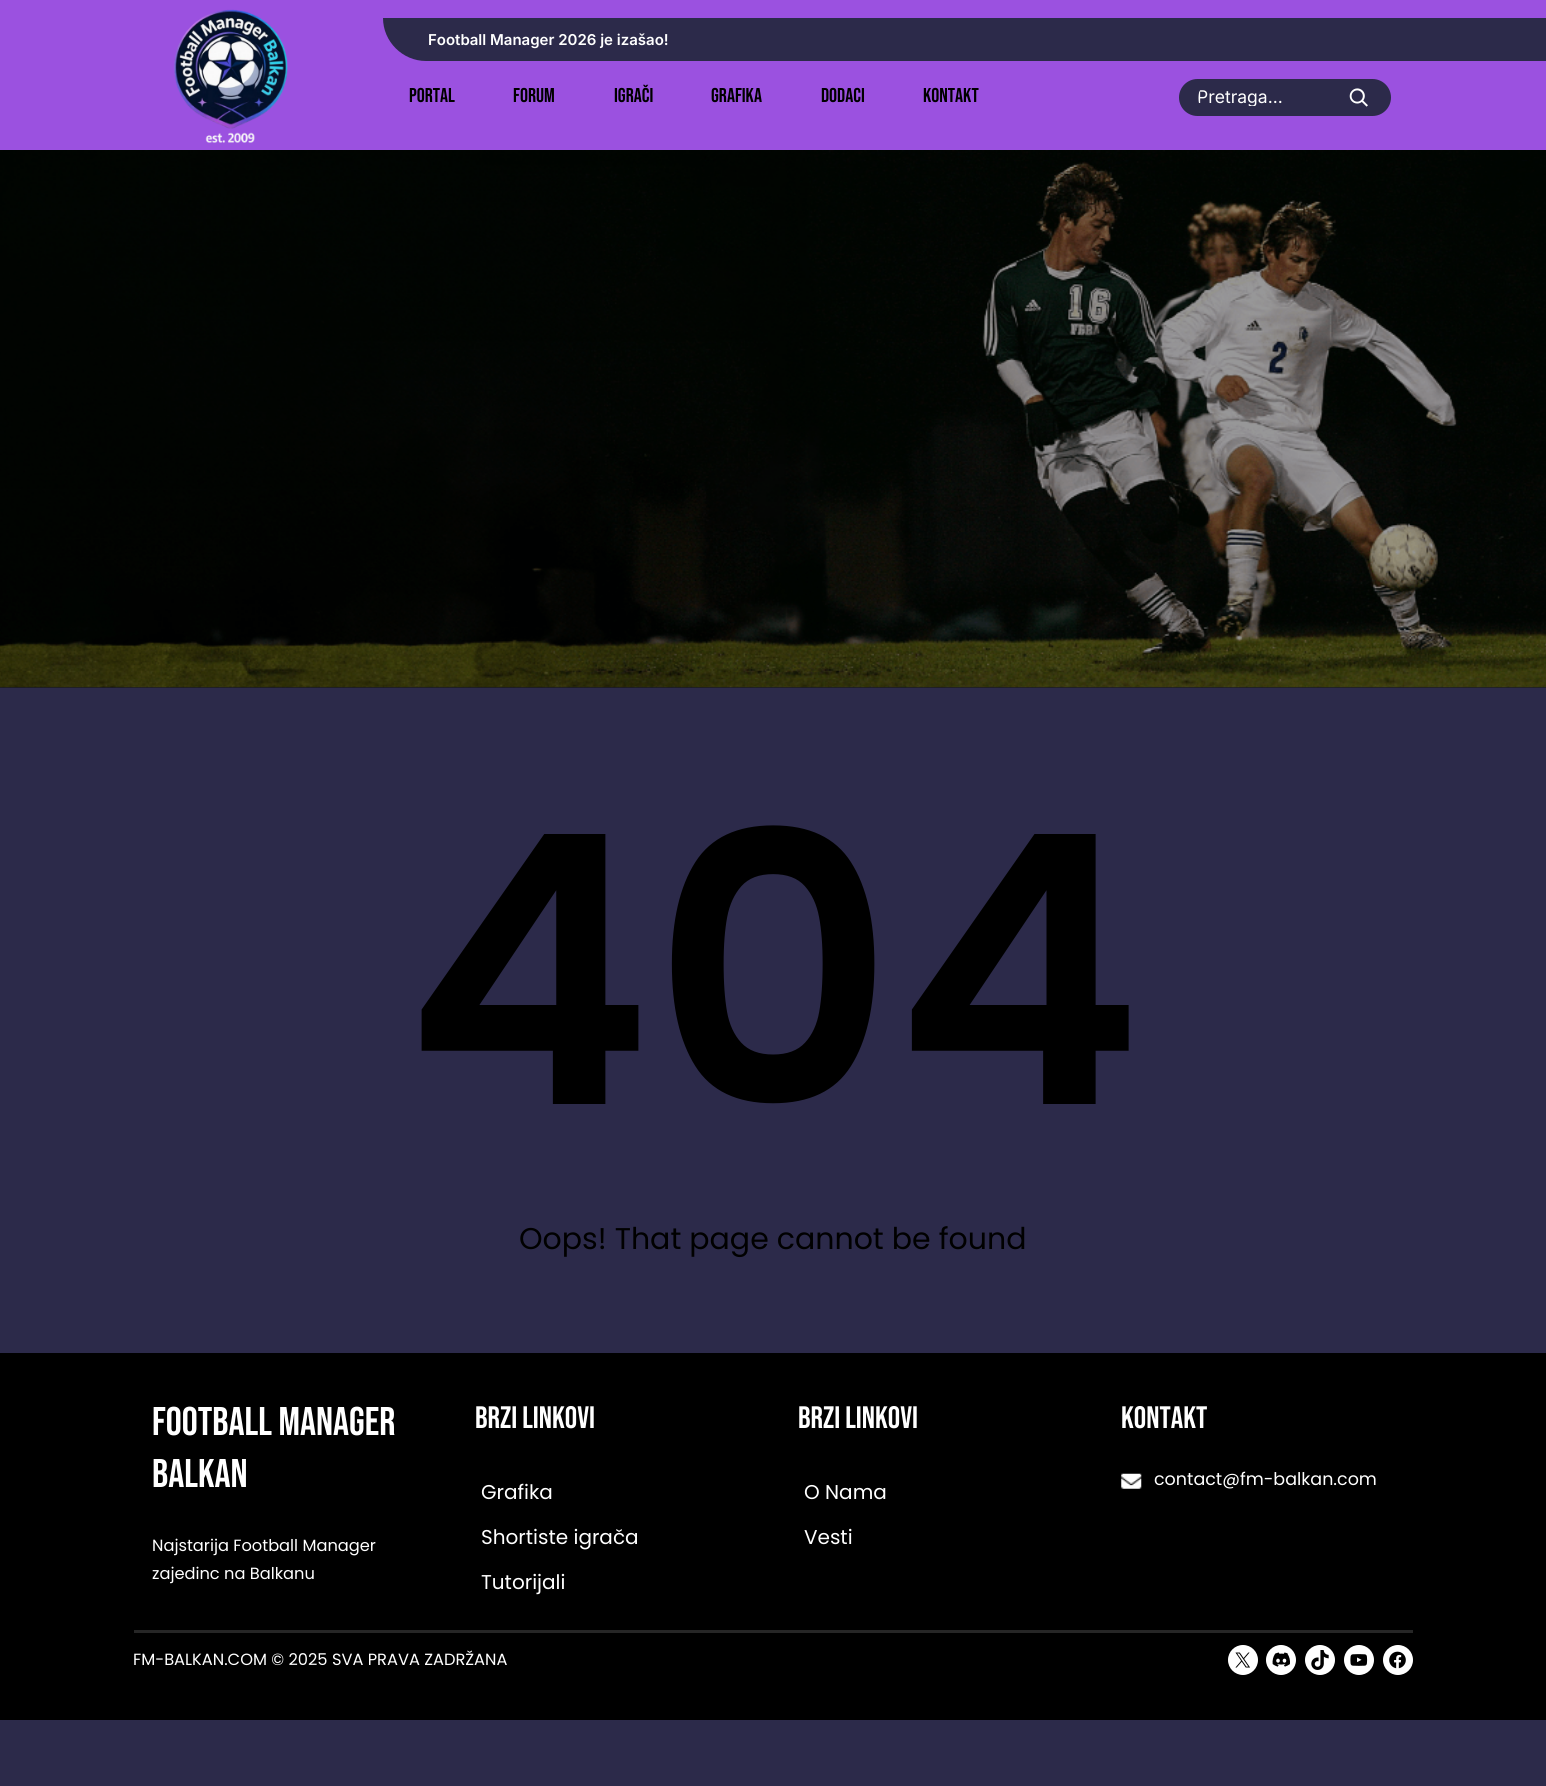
#include <cairo.h>
#include <math.h>
#include <stddef.h>

static cairo_t *ctx;

static void use_color(int r, int g, int b) {
    cairo_set_source_rgb(ctx, r / 255.0, g / 255.0, b / 255.0);
}

static void round_rect(double x, double y, double w, double h, double r) {
    cairo_new_sub_path(ctx);
    cairo_arc(ctx, x + w - r, y + h - r, r, 0, M_PI / 2);
    cairo_arc(ctx, x + r, y + h - r, r, M_PI / 2, M_PI);
    cairo_arc(ctx, x + r, y + r, r, M_PI, 1.5 * M_PI);
    cairo_arc(ctx, x + w - r, y + r, r, 1.5 * M_PI, 2 * M_PI);
    cairo_close_path(ctx);
}

static void picture(const char *path, double x, double y, double w, double h) {
    cairo_surface_t *image = cairo_image_surface_create_from_png(path);
    cairo_save(ctx);
    cairo_set_source_surface(ctx, image, x, y);
    cairo_rectangle(ctx, x, y, w, h);
    cairo_fill(ctx);
    cairo_restore(ctx);
    cairo_surface_destroy(image);
}

int main(void) {
    cairo_surface_t *surface = cairo_image_surface_create(CAIRO_FORMAT_RGB24, 1546, 1786);
    ctx = cairo_create(surface);
    cairo_font_options_t *options = cairo_font_options_create();
    cairo_font_options_set_hint_metrics(options, CAIRO_HINT_METRICS_OFF);
    cairo_font_options_set_hint_style(options, CAIRO_HINT_STYLE_NONE);
    cairo_set_font_options(ctx, options);
    cairo_set_miter_limit(ctx, 4);
    use_color(44, 42, 74);
    cairo_paint(ctx);
    use_color(26, 25, 44);
    cairo_rectangle(ctx, 0, 687, 1546, 1);
    cairo_fill(ctx);
    use_color(155, 81, 224);
    cairo_rectangle(ctx, 0, 0, 1546, 150);
    cairo_fill(ctx);
    picture("img1.png", 174, 9, 114, 134);
    use_color(44, 42, 74);
    cairo_rectangle(ctx, 1391, 18, 155, 43);
    cairo_fill(ctx);
    cairo_new_path(ctx);
    cairo_move_to(ctx, 383, 18);
    cairo_line_to(ctx, 1391, 18);
    cairo_line_to(ctx, 1391, 61);
    cairo_line_to(ctx, 426, 61);
    cairo_curve_to(ctx, 402.5, 61, 383, 41.5, 383, 18);
    cairo_close_path(ctx);
    cairo_fill(ctx);
    cairo_select_font_face(ctx, "Inter SemiBold", CAIRO_FONT_SLANT_NORMAL, CAIRO_FONT_WEIGHT_NORMAL);
    cairo_set_font_size(ctx, 15);
    use_color(255, 255, 255);
    cairo_move_to(ctx, 428, 45);
    cairo_show_text(ctx, "Football Manager 2026 je izašao!");
    cairo_select_font_face(ctx, "Bebas Neue", CAIRO_FONT_SLANT_NORMAL, CAIRO_FONT_WEIGHT_NORMAL);
    cairo_set_font_size(ctx, 20);
    use_color(0, 0, 0);
    cairo_move_to(ctx, 409, 102);
    cairo_show_text(ctx, "Portal");
    cairo_move_to(ctx, 513, 102);
    cairo_show_text(ctx, "FORUM");
    cairo_move_to(ctx, 614, 102);
    cairo_show_text(ctx, "IGRAČI");
    cairo_move_to(ctx, 711, 102);
    cairo_show_text(ctx, "GRAFIKA");
    cairo_move_to(ctx, 821, 102);
    cairo_show_text(ctx, "DODACI");
    cairo_move_to(ctx, 923, 102);
    cairo_show_text(ctx, "Kontakt");
    use_color(44, 42, 74);
    round_rect(1179, 79, 212, 37, 18.5);
    cairo_fill(ctx);
    cairo_save(ctx);
    cairo_new_path(ctx);
    cairo_move_to(ctx, 1213, 83);
    cairo_line_to(ctx, 1343, 83);
    cairo_line_to(ctx, 1343, 113);
    cairo_line_to(ctx, 1213, 113);
    cairo_curve_to(ctx, 1204.5, 113, 1198, 106.5, 1198, 98);
    cairo_curve_to(ctx, 1198, 89.5, 1204.5, 83, 1213, 83);
    cairo_close_path(ctx);
    cairo_clip(ctx);
    cairo_rectangle(ctx, 1198, 85, 128, 21);
    cairo_clip(ctx);
    cairo_select_font_face(ctx, "Inter", CAIRO_FONT_SLANT_NORMAL, CAIRO_FONT_WEIGHT_NORMAL);
    cairo_set_font_size(ctx, 17.5);
    use_color(255, 255, 255);
    cairo_move_to(ctx, 1197, 103);
    cairo_show_text(ctx, "Pretraga...");
    cairo_restore(ctx);
    picture("img2.png", 1349, 88, 19, 19);
    picture("img3.png", 0, 150, 1546, 538);
    cairo_select_font_face(ctx, "Poppins SemiBold", CAIRO_FONT_SLANT_NORMAL, CAIRO_FONT_WEIGHT_NORMAL);
    cairo_set_font_size(ctx, 375);
    use_color(0, 0, 0);
    cairo_move_to(ctx, 404, 1104);
    cairo_show_text(ctx, "404");
    cairo_select_font_face(ctx, "Poppins", CAIRO_FONT_SLANT_NORMAL, CAIRO_FONT_WEIGHT_NORMAL);
    cairo_set_font_size(ctx, 30);
    cairo_move_to(ctx, 519, 1249);
    cairo_show_text(ctx, "Oops! That page cannot be found");
    cairo_rectangle(ctx, 0, 1353, 1546, 367);
    cairo_fill(ctx);
    cairo_select_font_face(ctx, "Bebas Neue", CAIRO_FONT_SLANT_NORMAL, CAIRO_FONT_WEIGHT_NORMAL);
    cairo_set_font_size(ctx, 40);
    use_color(255, 255, 255);
    cairo_move_to(ctx, 152, 1435);
    cairo_show_text(ctx, "Football Manager");
    cairo_move_to(ctx, 152, 1487);
    cairo_show_text(ctx, "Balkan");
    cairo_select_font_face(ctx, "Poppins", CAIRO_FONT_SLANT_NORMAL, CAIRO_FONT_WEIGHT_NORMAL);
    cairo_set_font_size(ctx, 16.25);
    cairo_move_to(ctx, 152, 1551);
    cairo_show_text(ctx, "Najstarija Football Manager");
    cairo_move_to(ctx, 152, 1579);
    cairo_show_text(ctx, "zajedinc na Balkanu");
    cairo_select_font_face(ctx, "Bebas Neue", CAIRO_FONT_SLANT_NORMAL, CAIRO_FONT_WEIGHT_NORMAL);
    cairo_set_font_size(ctx, 31);
    cairo_move_to(ctx, 475, 1428);
    cairo_show_text(ctx, "BRZI LINKOVI");
    cairo_select_font_face(ctx, "Poppins", CAIRO_FONT_SLANT_NORMAL, CAIRO_FONT_WEIGHT_NORMAL);
    cairo_set_font_size(ctx, 20);
    cairo_move_to(ctx, 481, 1499);
    cairo_show_text(ctx, "Grafika");
    cairo_move_to(ctx, 481, 1544);
    cairo_show_text(ctx, "Shortiste igrača");
    cairo_move_to(ctx, 481, 1589);
    cairo_show_text(ctx, "Tutorijali");
    cairo_select_font_face(ctx, "Bebas Neue", CAIRO_FONT_SLANT_NORMAL, CAIRO_FONT_WEIGHT_NORMAL);
    cairo_set_font_size(ctx, 31);
    cairo_move_to(ctx, 798, 1428);
    cairo_show_text(ctx, "Brzi linkovi");
    cairo_select_font_face(ctx, "Poppins", CAIRO_FONT_SLANT_NORMAL, CAIRO_FONT_WEIGHT_NORMAL);
    cairo_set_font_size(ctx, 20);
    cairo_move_to(ctx, 804, 1499);
    cairo_show_text(ctx, "O Nama");
    cairo_move_to(ctx, 804, 1544);
    cairo_show_text(ctx, "Vesti");
    cairo_select_font_face(ctx, "Bebas Neue", CAIRO_FONT_SLANT_NORMAL, CAIRO_FONT_WEIGHT_NORMAL);
    cairo_set_font_size(ctx, 31);
    cairo_move_to(ctx, 1121, 1428);
    cairo_show_text(ctx, "Kontakt");
    picture("img4.png", 1121, 1473, 21, 16);
    cairo_select_font_face(ctx, "Poppins", CAIRO_FONT_SLANT_NORMAL, CAIRO_FONT_WEIGHT_NORMAL);
    cairo_set_font_size(ctx, 17.5);
    cairo_move_to(ctx, 1154, 1485);
    cairo_show_text(ctx, "contact@fm-balkan.com");
    use_color(38, 38, 38);
    cairo_rectangle(ctx, 134, 1630, 1279, 3);
    cairo_fill(ctx);
    cairo_set_font_size(ctx, 16.25);
    use_color(255, 255, 255);
    cairo_move_to(ctx, 133, 1665);
    cairo_show_text(ctx, "FM-BALKAN.COM © 2025 SVA PRAVA ZADRŽANA");
    cairo_new_path(ctx);
    cairo_arc(ctx, 1243, 1660, 15, 0, 2 * M_PI);
    cairo_fill(ctx);
    picture("img5.png", 1235, 1652, 15, 16);
    cairo_arc(ctx, 1281, 1660, 15, 0, 2 * M_PI);
    cairo_fill(ctx);
    picture("img6.png", 1272, 1652, 18, 15);
    cairo_arc(ctx, 1320, 1660, 15, 0, 2 * M_PI);
    cairo_fill(ctx);
    picture("img7.png", 1311, 1650, 18, 20);
    cairo_arc(ctx, 1359, 1660, 15, 0, 2 * M_PI);
    cairo_fill(ctx);
    picture("img8.png", 1350, 1654, 18, 12);
    cairo_arc(ctx, 1398, 1660, 15, 0, 2 * M_PI);
    cairo_fill(ctx);
    picture("img9.png", 1389, 1651, 17, 18);
    cairo_surface_write_to_png(surface, "result.png");
    cairo_font_options_destroy(options);
    cairo_destroy(ctx);
    cairo_surface_destroy(surface);
    return 0;
}
